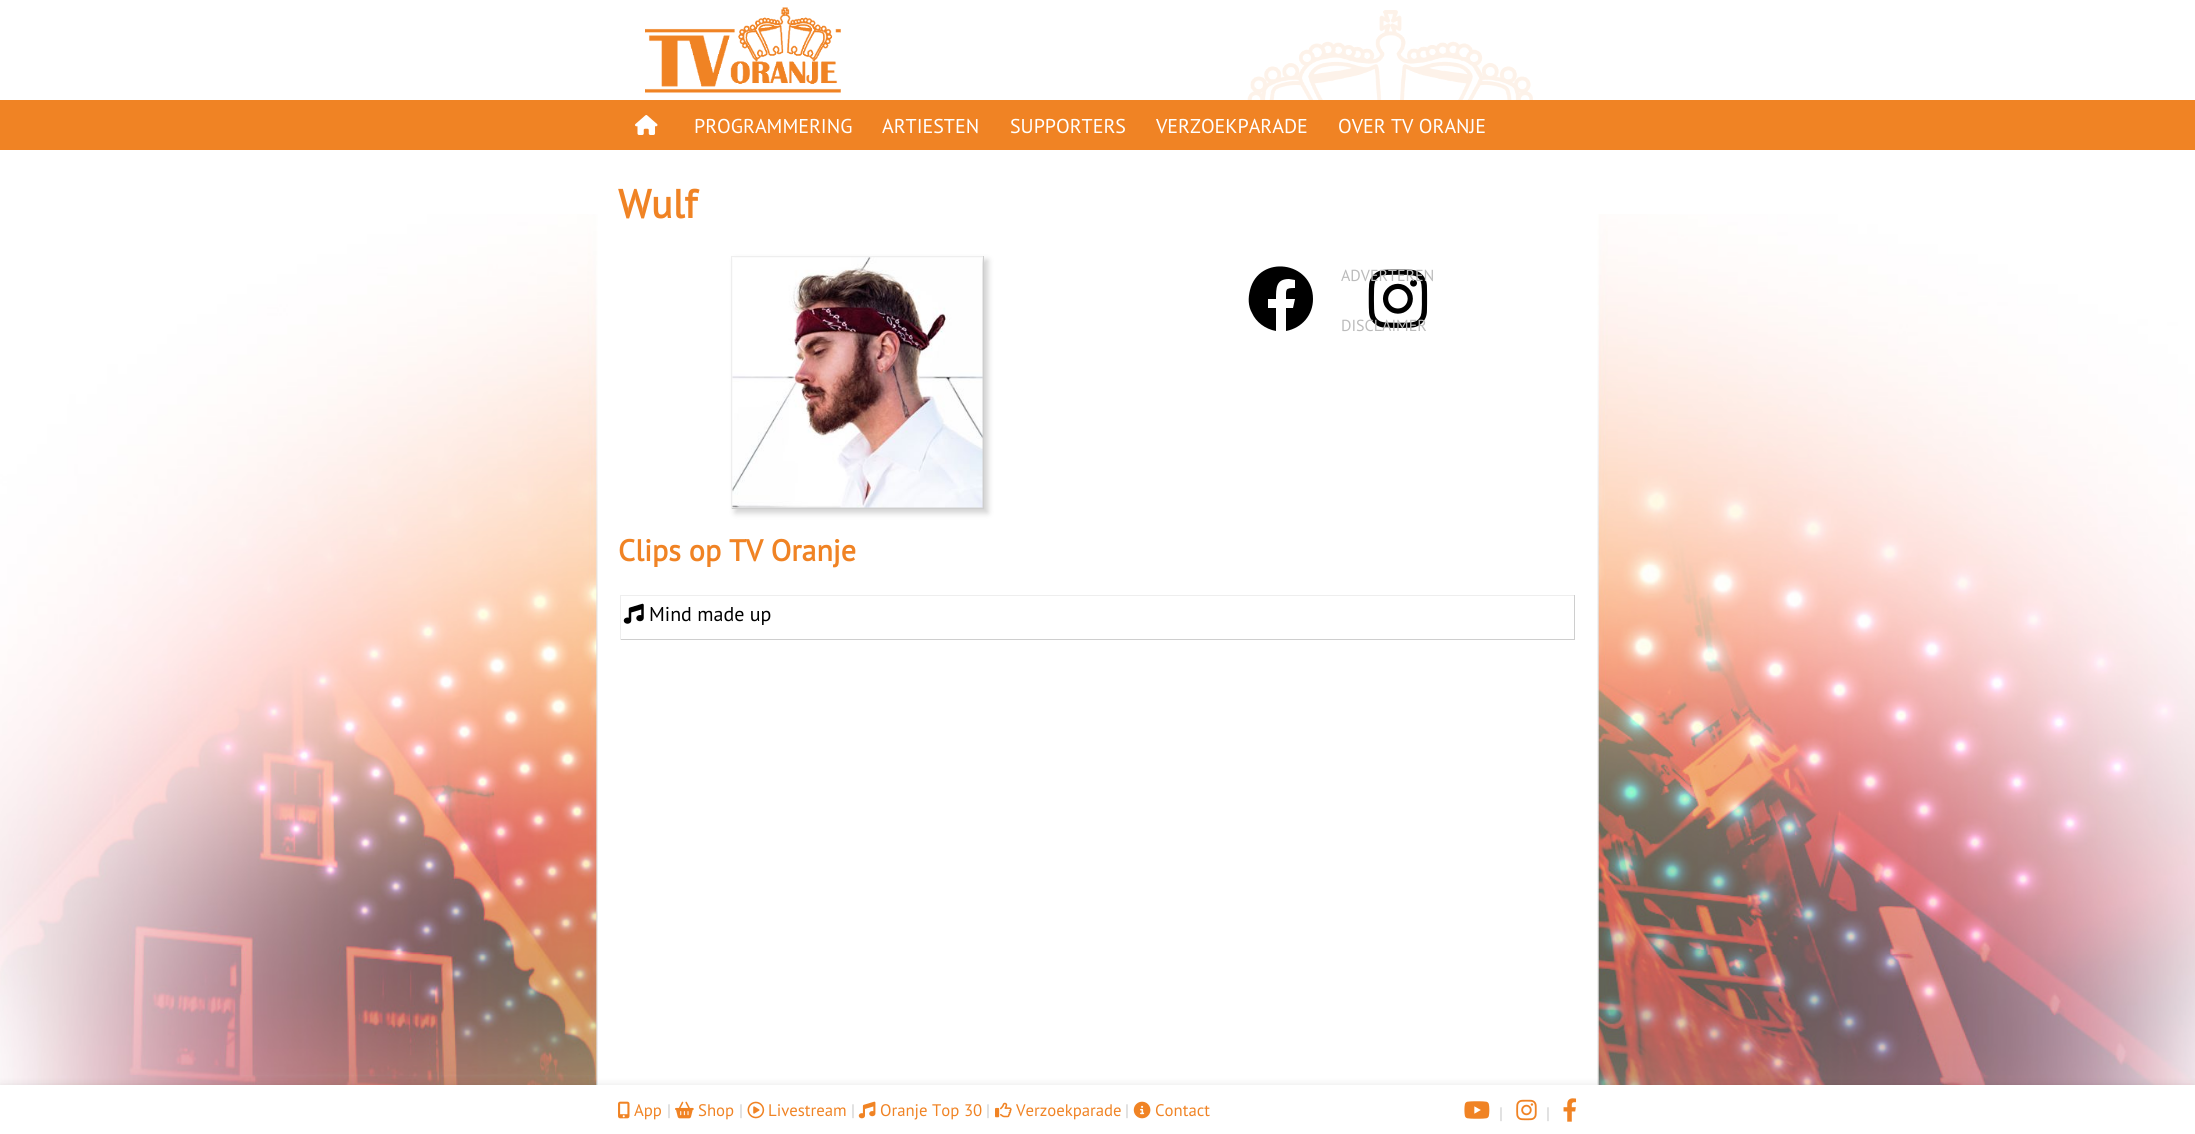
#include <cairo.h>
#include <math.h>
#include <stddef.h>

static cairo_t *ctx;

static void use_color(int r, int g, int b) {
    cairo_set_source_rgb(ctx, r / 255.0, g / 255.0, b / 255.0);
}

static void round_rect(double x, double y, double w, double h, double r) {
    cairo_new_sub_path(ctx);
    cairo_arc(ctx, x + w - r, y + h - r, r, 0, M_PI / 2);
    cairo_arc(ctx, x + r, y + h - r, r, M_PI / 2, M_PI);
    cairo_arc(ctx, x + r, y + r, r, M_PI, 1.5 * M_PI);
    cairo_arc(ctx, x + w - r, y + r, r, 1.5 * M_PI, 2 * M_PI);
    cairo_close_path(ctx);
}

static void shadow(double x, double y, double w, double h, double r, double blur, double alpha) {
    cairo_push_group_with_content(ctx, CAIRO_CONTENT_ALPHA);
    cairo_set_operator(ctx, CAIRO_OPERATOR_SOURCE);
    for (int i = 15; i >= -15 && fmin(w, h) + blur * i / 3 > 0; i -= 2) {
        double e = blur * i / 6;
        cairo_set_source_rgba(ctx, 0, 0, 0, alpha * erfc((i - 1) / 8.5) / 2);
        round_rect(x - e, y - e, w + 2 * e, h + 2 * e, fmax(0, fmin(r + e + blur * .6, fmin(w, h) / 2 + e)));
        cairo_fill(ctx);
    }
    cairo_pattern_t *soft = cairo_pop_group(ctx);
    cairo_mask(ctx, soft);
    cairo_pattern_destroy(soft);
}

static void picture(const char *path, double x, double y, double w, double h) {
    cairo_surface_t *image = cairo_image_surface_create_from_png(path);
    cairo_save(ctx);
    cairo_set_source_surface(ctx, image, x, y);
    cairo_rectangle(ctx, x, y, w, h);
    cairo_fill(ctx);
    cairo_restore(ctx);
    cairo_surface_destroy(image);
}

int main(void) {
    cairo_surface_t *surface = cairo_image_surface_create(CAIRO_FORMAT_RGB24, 2195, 1134);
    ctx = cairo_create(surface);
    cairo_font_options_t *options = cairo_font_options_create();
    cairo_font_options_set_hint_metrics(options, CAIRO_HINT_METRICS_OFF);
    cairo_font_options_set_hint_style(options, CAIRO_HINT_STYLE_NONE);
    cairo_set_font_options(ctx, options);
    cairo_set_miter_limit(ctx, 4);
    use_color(255, 255, 255);
    cairo_paint(ctx);
    picture("img1.png", 0, 214, 2195, 871);
    picture("img2.png", 645, 7, 196, 86);
    picture("img3.png", 1247, 10, 286, 90);
    use_color(240, 131, 36);
    cairo_rectangle(ctx, 0, 100, 2195, 50);
    cairo_fill(ctx);
    picture("img4.png", 635, 115, 23, 20);
    cairo_select_font_face(ctx, "PT Sans", CAIRO_FONT_SLANT_NORMAL, CAIRO_FONT_WEIGHT_NORMAL);
    cairo_set_font_size(ctx, 20);
    use_color(255, 255, 255);
    cairo_move_to(ctx, 694, 133);
    cairo_show_text(ctx, "PROGRAMMERING");
    cairo_move_to(ctx, 882, 133);
    cairo_show_text(ctx, "ARTIESTEN");
    cairo_move_to(ctx, 1010, 133);
    cairo_show_text(ctx, "SUPPORTERS");
    cairo_move_to(ctx, 1156, 133);
    cairo_show_text(ctx, "VERZOEKPARADE");
    cairo_move_to(ctx, 1338, 133);
    cairo_show_text(ctx, "OVER TV ORANJE");
    picture("img6.png", 1368, 269, 60, 59);
    cairo_set_font_size(ctx, 16);
    use_color(187, 187, 187);
    cairo_move_to(ctx, 1341, 281);
    cairo_show_text(ctx, "ADVERTEREN");
    cairo_move_to(ctx, 1341, 331);
    cairo_show_text(ctx, "DISCLAIMER");
    cairo_select_font_face(ctx, "PT Sans", CAIRO_FONT_SLANT_NORMAL, CAIRO_FONT_WEIGHT_BOLD);
    cairo_set_font_size(ctx, 40);
    use_color(240, 131, 36);
    cairo_move_to(ctx, 618, 218);
    cairo_show_text(ctx, "Wulf");
    use_color(0, 0, 0);
    shadow(735, 260, 253, 253, 0, 3, 0.18);
    use_color(238, 238, 238);
    cairo_rectangle(ctx, 731, 256, 253, 1);
    cairo_fill(ctx);
    use_color(206, 206, 206);
    cairo_rectangle(ctx, 983, 256, 1, 253);
    cairo_fill(ctx);
    cairo_rectangle(ctx, 731, 508, 253, 1);
    cairo_fill(ctx);
    use_color(238, 238, 238);
    cairo_rectangle(ctx, 731, 256, 1, 253);
    cairo_fill(ctx);
    picture("img5.png", 732, 257, 251, 251);
    use_color(0, 0, 0);
    cairo_new_path(ctx);
    cairo_move_to(ctx, 1313, 299);
    cairo_curve_to(ctx, 1313, 261, 1259, 254, 1250, 290);
    cairo_curve_to(ctx, 1248, 298, 1248, 306, 1252, 313);
    cairo_curve_to(ctx, 1256, 322, 1265, 329, 1276, 331);
    cairo_line_to(ctx, 1276, 308);
    cairo_line_to(ctx, 1268, 308);
    cairo_line_to(ctx, 1268, 299);
    cairo_line_to(ctx, 1276, 299);
    cairo_curve_to(ctx, 1276, 288, 1276, 279, 1289, 279);
    cairo_line_to(ctx, 1295, 280);
    cairo_line_to(ctx, 1295, 288);
    cairo_curve_to(ctx, 1285, 288, 1286, 289, 1286, 299);
    cairo_line_to(ctx, 1295, 299);
    cairo_line_to(ctx, 1293, 308);
    cairo_line_to(ctx, 1286, 308);
    cairo_line_to(ctx, 1286, 331);
    cairo_curve_to(ctx, 1302, 328, 1313, 315, 1313, 299);
    cairo_close_path(ctx);
    cairo_fill(ctx);
    cairo_set_font_size(ctx, 30);
    use_color(240, 131, 36);
    cairo_move_to(ctx, 618, 561);
    cairo_show_text(ctx, "Clips op TV Oranje");
    use_color(238, 238, 238);
    cairo_rectangle(ctx, 620, 595, 955, 1);
    cairo_fill(ctx);
    use_color(206, 206, 206);
    cairo_rectangle(ctx, 1574, 595, 1, 45);
    cairo_fill(ctx);
    cairo_rectangle(ctx, 620, 639, 955, 1);
    cairo_fill(ctx);
    use_color(238, 238, 238);
    cairo_rectangle(ctx, 620, 595, 1, 45);
    cairo_fill(ctx);
    picture("img7.png", 623, 603, 21, 21);
    cairo_select_font_face(ctx, "PT Sans", CAIRO_FONT_SLANT_NORMAL, CAIRO_FONT_WEIGHT_NORMAL);
    cairo_set_font_size(ctx, 20);
    use_color(0, 0, 0);
    cairo_move_to(ctx, 649, 621);
    cairo_show_text(ctx, "Mind made up");
    use_color(0, 0, 0);
    shadow(0, 1085, 2195, 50, 0, 4, 0.1);
    use_color(255, 255, 255);
    cairo_rectangle(ctx, 0, 1085, 2195, 49);
    cairo_fill(ctx);
    picture("img8.png", 618, 1101, 12, 18);
    cairo_set_font_size(ctx, 16.75);
    use_color(240, 131, 36);
    cairo_move_to(ctx, 634, 1116);
    cairo_show_text(ctx, "App");
    use_color(204, 204, 204);
    cairo_move_to(ctx, 667, 1116);
    cairo_show_text(ctx, "|");
    picture("img9.png", 675, 1101, 19, 18);
    use_color(240, 131, 36);
    cairo_move_to(ctx, 698, 1116);
    cairo_show_text(ctx, "Shop");
    use_color(204, 204, 204);
    cairo_move_to(ctx, 739, 1116);
    cairo_show_text(ctx, "|");
    picture("img10.png", 747, 1101, 18, 18);
    use_color(240, 131, 36);
    cairo_move_to(ctx, 768, 1116);
    cairo_show_text(ctx, "Livestream");
    use_color(204, 204, 204);
    cairo_move_to(ctx, 851, 1116);
    cairo_show_text(ctx, "|");
    picture("img11.png", 858, 1101, 18, 18);
    use_color(240, 131, 36);
    cairo_move_to(ctx, 880, 1116);
    cairo_show_text(ctx, "Oranje Top 30");
    use_color(204, 204, 204);
    cairo_move_to(ctx, 986, 1116);
    cairo_show_text(ctx, "|");
    picture("img12.png", 995, 1102, 17, 16);
    use_color(240, 131, 36);
    cairo_move_to(ctx, 1016, 1116);
    cairo_show_text(ctx, "Verzoekparade");
    use_color(204, 204, 204);
    cairo_move_to(ctx, 1125, 1116);
    cairo_show_text(ctx, "|");
    picture("img13.png", 1133, 1101, 18, 18);
    use_color(240, 131, 36);
    cairo_move_to(ctx, 1155, 1116);
    cairo_show_text(ctx, "Contact");
    picture("img14.png", 1464, 1101, 26, 18);
    use_color(204, 204, 204);
    cairo_move_to(ctx, 1499, 1119);
    cairo_show_text(ctx, "|");
    picture("img15.png", 1516, 1099, 21, 22);
    cairo_move_to(ctx, 1546, 1119);
    cairo_show_text(ctx, "|");
    picture("img16.png", 1563, 1098, 14, 24);
    cairo_surface_write_to_png(surface, "result.png");
    cairo_font_options_destroy(options);
    cairo_destroy(ctx);
    cairo_surface_destroy(surface);
    return 0;
}
